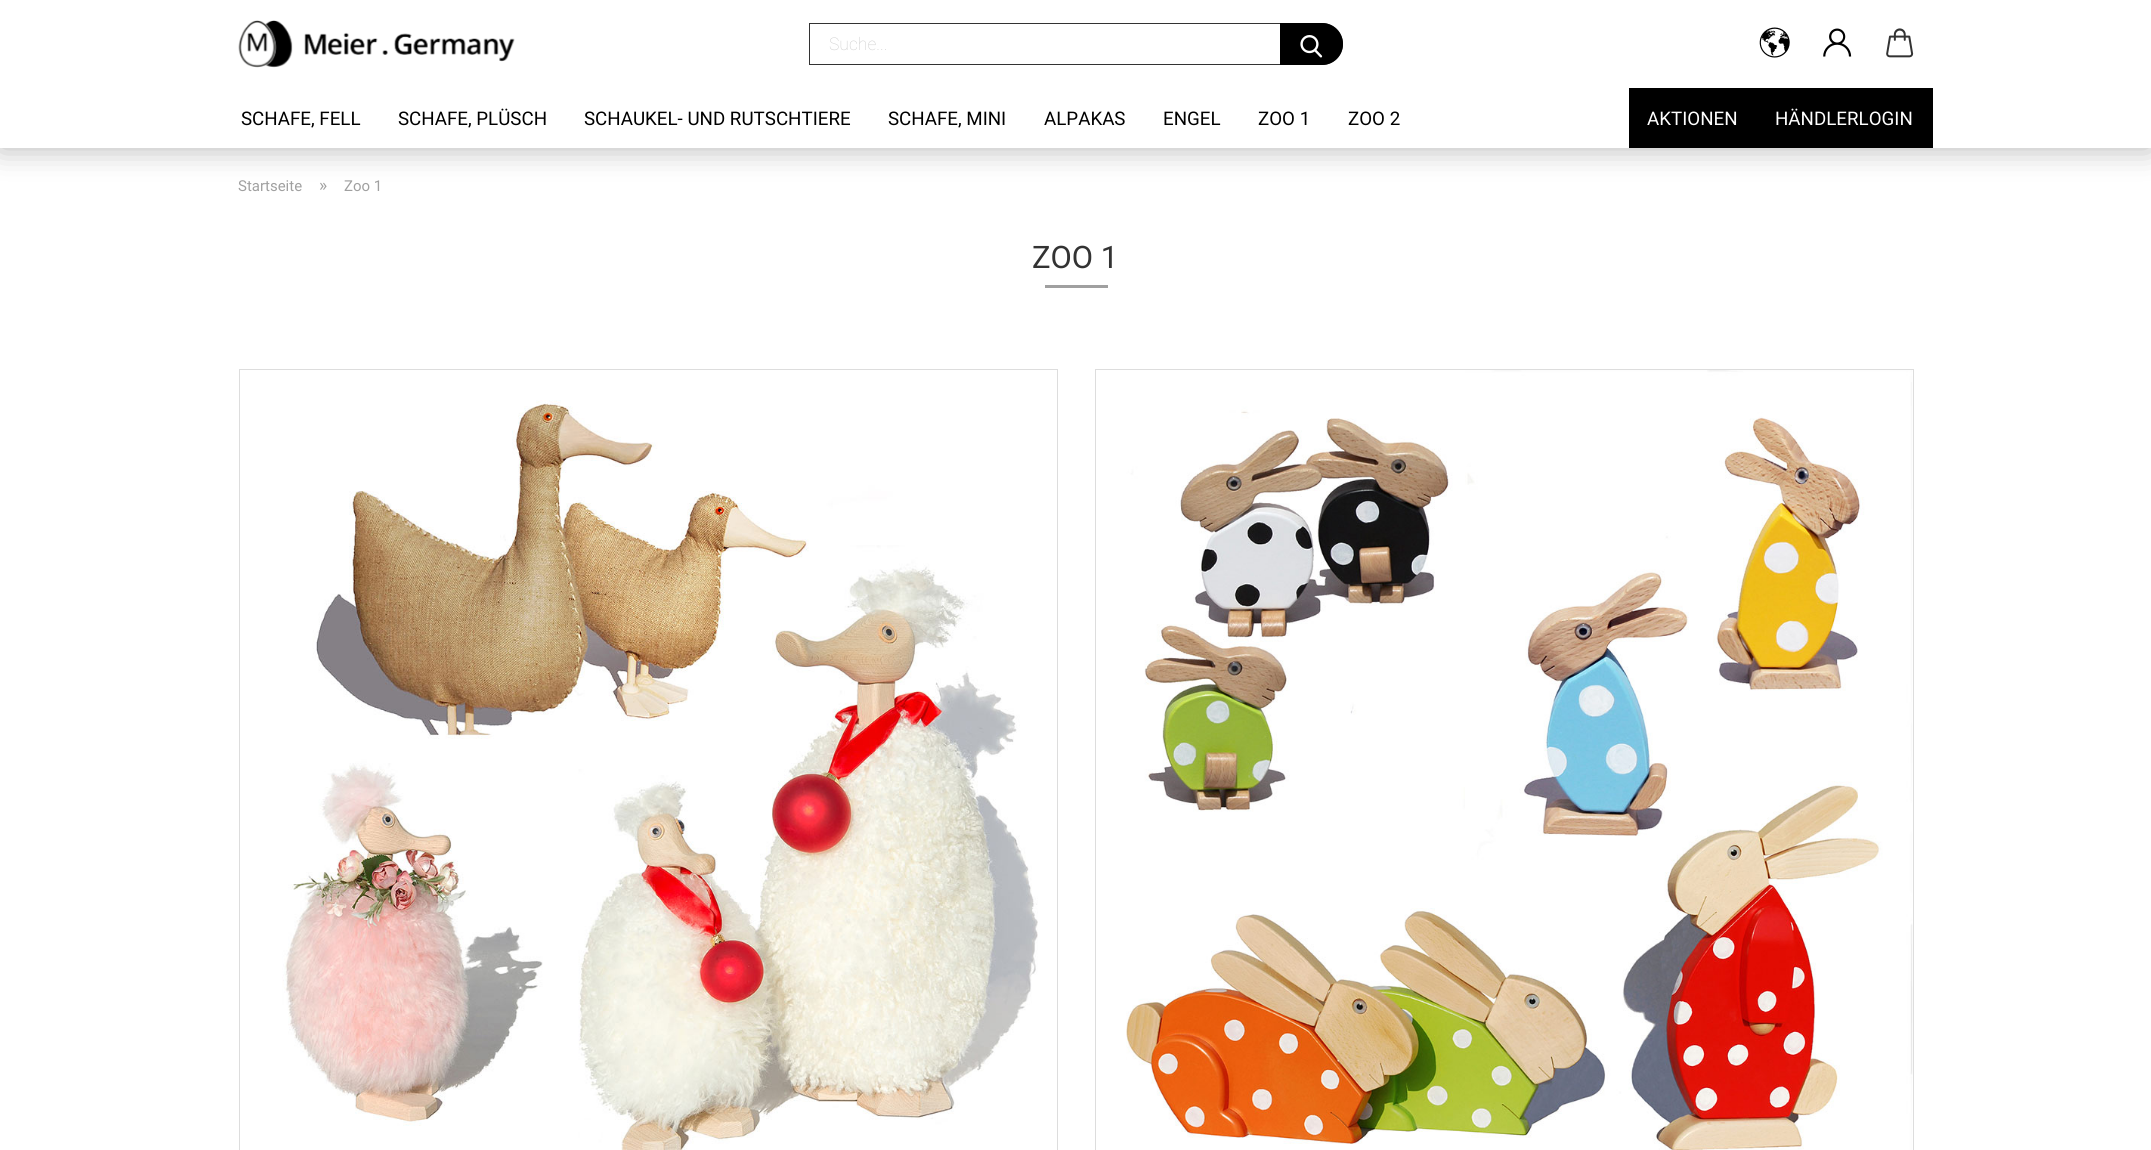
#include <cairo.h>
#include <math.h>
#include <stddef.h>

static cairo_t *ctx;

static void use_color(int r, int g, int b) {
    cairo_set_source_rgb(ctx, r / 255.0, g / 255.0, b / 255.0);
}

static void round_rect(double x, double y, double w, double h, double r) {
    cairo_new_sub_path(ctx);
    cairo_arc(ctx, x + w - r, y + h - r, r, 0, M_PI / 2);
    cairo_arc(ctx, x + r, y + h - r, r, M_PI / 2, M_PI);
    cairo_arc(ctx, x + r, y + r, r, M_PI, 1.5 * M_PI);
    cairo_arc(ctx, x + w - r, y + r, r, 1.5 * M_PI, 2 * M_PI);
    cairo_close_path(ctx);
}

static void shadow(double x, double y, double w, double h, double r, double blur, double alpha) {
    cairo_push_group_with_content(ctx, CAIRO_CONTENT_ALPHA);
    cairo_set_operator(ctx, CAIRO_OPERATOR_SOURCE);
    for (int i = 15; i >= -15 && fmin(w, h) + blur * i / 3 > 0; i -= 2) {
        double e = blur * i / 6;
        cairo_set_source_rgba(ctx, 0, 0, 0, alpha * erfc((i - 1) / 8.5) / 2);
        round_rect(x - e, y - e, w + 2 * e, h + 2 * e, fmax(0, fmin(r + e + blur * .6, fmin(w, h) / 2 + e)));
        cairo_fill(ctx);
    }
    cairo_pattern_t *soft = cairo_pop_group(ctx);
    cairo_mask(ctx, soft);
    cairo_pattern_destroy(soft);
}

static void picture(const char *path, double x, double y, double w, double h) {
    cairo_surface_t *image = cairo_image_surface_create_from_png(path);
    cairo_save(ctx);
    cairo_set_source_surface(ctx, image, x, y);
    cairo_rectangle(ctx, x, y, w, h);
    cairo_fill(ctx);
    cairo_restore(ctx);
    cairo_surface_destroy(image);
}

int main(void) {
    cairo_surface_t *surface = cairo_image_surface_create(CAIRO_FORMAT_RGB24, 2151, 1150);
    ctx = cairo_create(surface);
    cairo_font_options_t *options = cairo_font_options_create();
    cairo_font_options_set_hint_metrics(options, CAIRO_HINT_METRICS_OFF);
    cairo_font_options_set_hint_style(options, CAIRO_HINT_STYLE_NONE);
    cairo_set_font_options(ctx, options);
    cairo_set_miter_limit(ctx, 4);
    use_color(255, 255, 255);
    cairo_paint(ctx);
    use_color(0, 0, 0);
    shadow(0, 0, 2151, 148, 0, 15.5, 0.3);
    use_color(255, 255, 255);
    cairo_rectangle(ctx, 0, 0, 2151, 148);
    cairo_fill(ctx);
    picture("img1.png", 238, 20, 277, 48);
    cairo_new_path(ctx);
    cairo_move_to(ctx, 809.5, 23.5);
    cairo_line_to(ctx, 1322, 23.5);
    cairo_curve_to(ctx, 1333.5, 23.5, 1342.5, 32.5, 1342.5, 44);
    cairo_curve_to(ctx, 1342.5, 55.5, 1333.5, 64.5, 1322, 64.5);
    cairo_line_to(ctx, 809.5, 64.5);
    cairo_close_path(ctx);
    use_color(51, 51, 51);
    cairo_set_line_width(ctx, 1);
    cairo_stroke(ctx);
    cairo_select_font_face(ctx, "Roboto Thin", CAIRO_FONT_SLANT_NORMAL, CAIRO_FONT_WEIGHT_NORMAL);
    cairo_set_font_size(ctx, 17.5);
    use_color(204, 204, 204);
    cairo_move_to(ctx, 829, 50);
    cairo_show_text(ctx, "Suche...");
    use_color(0, 0, 0);
    cairo_new_path(ctx);
    cairo_move_to(ctx, 1280, 23);
    cairo_line_to(ctx, 1322, 23);
    cairo_curve_to(ctx, 1333.5, 23, 1343, 32.5, 1343, 44);
    cairo_curve_to(ctx, 1343, 55.5, 1333.5, 65, 1322, 65);
    cairo_line_to(ctx, 1280, 65);
    cairo_close_path(ctx);
    cairo_fill(ctx);
    picture("img2.png", 1300, 35, 23, 23);
    picture("img3.png", 1759, 27, 31, 31);
    picture("img4.png", 1823, 28, 29, 29);
    picture("img5.png", 1886, 28, 28, 30);
    cairo_select_font_face(ctx, "Roboto", CAIRO_FONT_SLANT_NORMAL, CAIRO_FONT_WEIGHT_NORMAL);
    cairo_set_font_size(ctx, 18.75);
    cairo_move_to(ctx, 241, 125);
    cairo_show_text(ctx, "SCHAFE, FELL");
    cairo_move_to(ctx, 398, 125);
    cairo_show_text(ctx, "SCHAFE, PLÜSCH");
    cairo_move_to(ctx, 584, 125);
    cairo_show_text(ctx, "SCHAUKEL- UND RUTSCHTIERE");
    cairo_move_to(ctx, 888, 125);
    cairo_show_text(ctx, "SCHAFE, MINI");
    cairo_move_to(ctx, 1044, 125);
    cairo_show_text(ctx, "ALPAKAS");
    cairo_move_to(ctx, 1163, 125);
    cairo_show_text(ctx, "ENGEL");
    cairo_move_to(ctx, 1258, 125);
    cairo_show_text(ctx, "ZOO 1");
    cairo_move_to(ctx, 1348, 125);
    cairo_show_text(ctx, "ZOO 2");
    cairo_rectangle(ctx, 1629, 88, 304, 60);
    cairo_fill(ctx);
    use_color(255, 255, 255);
    cairo_move_to(ctx, 1647, 125);
    cairo_show_text(ctx, "AKTIONEN");
    cairo_move_to(ctx, 1775, 125);
    cairo_show_text(ctx, "HÄNDLERLOGIN");
    cairo_set_font_size(ctx, 15);
    use_color(160, 160, 160);
    cairo_move_to(ctx, 238, 191);
    cairo_show_text(ctx, "Startseite");
    cairo_set_font_size(ctx, 17.5);
    cairo_move_to(ctx, 319, 191);
    cairo_show_text(ctx, "»");
    cairo_set_font_size(ctx, 15);
    cairo_move_to(ctx, 344, 191);
    cairo_show_text(ctx, "Zoo 1");
    cairo_set_font_size(ctx, 31);
    use_color(51, 51, 51);
    cairo_move_to(ctx, 1032, 268);
    cairo_show_text(ctx, "ZOO 1");
    use_color(160, 160, 160);
    cairo_rectangle(ctx, 1045, 285, 63, 3);
    cairo_fill(ctx);
    cairo_rectangle(ctx, 239.5, 369.5, 818, 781);
    use_color(221, 221, 221);
    cairo_stroke(ctx);
    picture("img6.png", 282, 400, 756, 750);
    cairo_rectangle(ctx, 1095.5, 369.5, 818, 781);
    cairo_stroke(ctx);
    picture("img7.png", 1126, 370, 787, 780);
    cairo_surface_write_to_png(surface, "result.png");
    cairo_font_options_destroy(options);
    cairo_destroy(ctx);
    cairo_surface_destroy(surface);
    return 0;
}
